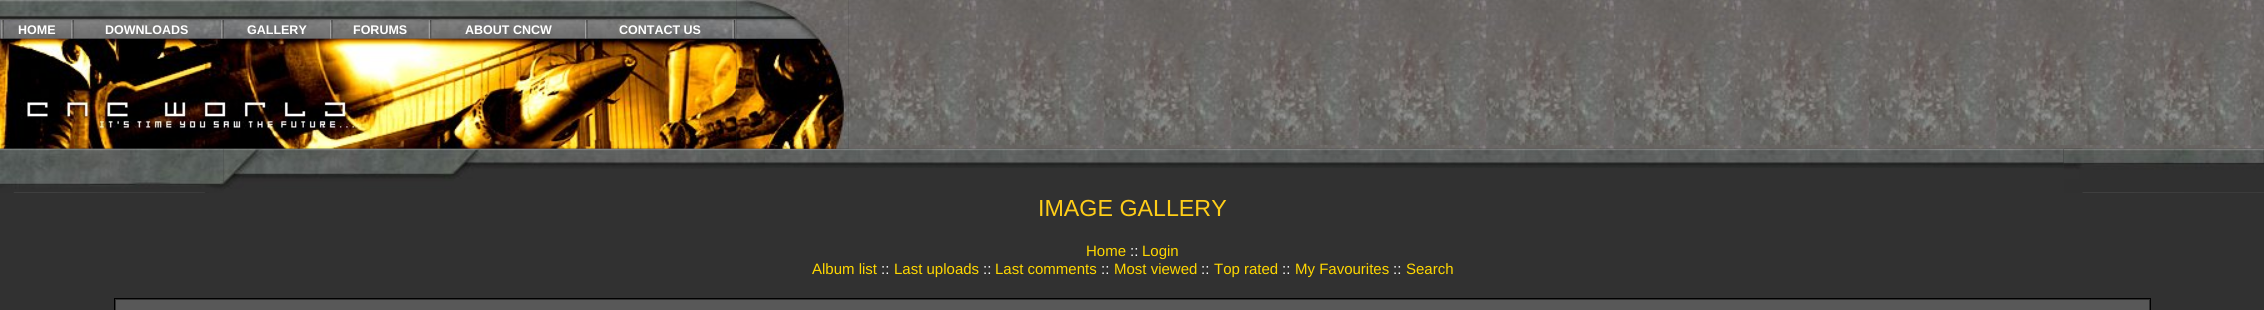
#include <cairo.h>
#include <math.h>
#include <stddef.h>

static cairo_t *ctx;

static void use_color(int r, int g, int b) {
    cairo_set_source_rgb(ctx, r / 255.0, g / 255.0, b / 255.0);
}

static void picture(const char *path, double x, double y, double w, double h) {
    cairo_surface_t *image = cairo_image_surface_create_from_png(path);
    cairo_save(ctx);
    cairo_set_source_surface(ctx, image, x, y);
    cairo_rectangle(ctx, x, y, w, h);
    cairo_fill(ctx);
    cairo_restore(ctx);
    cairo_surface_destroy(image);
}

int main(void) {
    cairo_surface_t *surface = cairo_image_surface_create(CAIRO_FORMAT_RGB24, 2264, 310);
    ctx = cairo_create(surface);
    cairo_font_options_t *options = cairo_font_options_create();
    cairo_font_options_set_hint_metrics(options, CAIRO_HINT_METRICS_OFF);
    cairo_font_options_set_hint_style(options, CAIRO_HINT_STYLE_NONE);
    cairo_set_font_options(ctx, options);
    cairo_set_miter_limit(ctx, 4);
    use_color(49, 49, 49);
    cairo_paint(ctx);
    picture("img1.png", 0, 0, 737, 20);
    picture("img2.png", 0, 20, 737, 19);
    picture("img3.png", 1, 20, 3, 19);
    cairo_select_font_face(ctx, "Liberation Sans", CAIRO_FONT_SLANT_NORMAL, CAIRO_FONT_WEIGHT_BOLD);
    cairo_set_font_size(ctx, 12.5);
    use_color(255, 255, 255);
    cairo_move_to(ctx, 18, 34);
    cairo_show_text(ctx, "HOME");
    picture("img4.png", 71, 20, 3, 19);
    cairo_move_to(ctx, 105, 34);
    cairo_show_text(ctx, "DOWNLOADS");
    picture("img5.png", 221, 20, 3, 19);
    cairo_move_to(ctx, 247, 34);
    cairo_show_text(ctx, "GALLERY");
    picture("img6.png", 330, 20, 3, 19);
    cairo_move_to(ctx, 353, 34);
    cairo_show_text(ctx, "FORUMS");
    picture("img7.png", 428, 20, 4, 19);
    cairo_move_to(ctx, 465, 34);
    cairo_show_text(ctx, "ABOUT CNCW");
    picture("img8.png", 585, 20, 3, 19);
    cairo_move_to(ctx, 619, 34);
    cairo_show_text(ctx, "CONTACT US");
    picture("img9.png", 732, 20, 3, 19);
    picture("img14.png", 12, 148, 197, 45);
    picture("img10.png", 0, 38, 370, 111);
    picture("img11.png", 370, 38, 367, 111);
    picture("img13.png", 848, 0, 1416, 149);
    picture("img17.png", 765, 148, 1299, 20);
    picture("img12.png", 736, 0, 113, 149);
    picture("img15.png", 0, 148, 224, 45);
    picture("img16.png", 223, 148, 542, 41);
    picture("img18.png", 2063, 148, 201, 45);
    picture("img19.png", 2063, 148, 201, 45);
    cairo_select_font_face(ctx, "Liberation Sans", CAIRO_FONT_SLANT_NORMAL, CAIRO_FONT_WEIGHT_NORMAL);
    cairo_set_font_size(ctx, 23.25);
    use_color(255, 206, 24);
    cairo_move_to(ctx, 1038, 216);
    cairo_show_text(ctx, "IMAGE GALLERY");
    cairo_set_font_size(ctx, 15);
    use_color(255, 215, 0);
    cairo_move_to(ctx, 1086, 256);
    cairo_show_text(ctx, "Home");
    use_color(255, 255, 255);
    cairo_move_to(ctx, 1130, 256);
    cairo_show_text(ctx, "::");
    use_color(255, 215, 0);
    cairo_move_to(ctx, 1142, 256);
    cairo_show_text(ctx, "Login");
    cairo_move_to(ctx, 812, 274);
    cairo_show_text(ctx, "Album list");
    use_color(255, 255, 255);
    cairo_move_to(ctx, 881, 274);
    cairo_show_text(ctx, "::");
    use_color(255, 215, 0);
    cairo_move_to(ctx, 894, 274);
    cairo_show_text(ctx, "Last uploads");
    use_color(255, 255, 255);
    cairo_move_to(ctx, 983, 274);
    cairo_show_text(ctx, "::");
    use_color(255, 215, 0);
    cairo_move_to(ctx, 995, 274);
    cairo_show_text(ctx, "Last comments");
    use_color(255, 255, 255);
    cairo_move_to(ctx, 1101, 274);
    cairo_show_text(ctx, "::");
    use_color(255, 215, 0);
    cairo_move_to(ctx, 1114, 274);
    cairo_show_text(ctx, "Most viewed");
    use_color(255, 255, 255);
    cairo_move_to(ctx, 1201, 274);
    cairo_show_text(ctx, "::");
    use_color(255, 215, 0);
    cairo_move_to(ctx, 1214, 274);
    cairo_show_text(ctx, "Top rated");
    use_color(255, 255, 255);
    cairo_move_to(ctx, 1282, 274);
    cairo_show_text(ctx, "::");
    use_color(255, 215, 0);
    cairo_move_to(ctx, 1295, 274);
    cairo_show_text(ctx, "My Favourites");
    use_color(255, 255, 255);
    cairo_move_to(ctx, 1393, 274);
    cairo_show_text(ctx, "::");
    use_color(255, 215, 0);
    cairo_move_to(ctx, 1406, 274);
    cairo_show_text(ctx, "Search");
    cairo_rectangle(ctx, 114.5, 298.5, 2036, 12);
    use_color(0, 0, 0);
    cairo_set_line_width(ctx, 1);
    cairo_stroke(ctx);
    use_color(88, 88, 88);
    cairo_rectangle(ctx, 116, 300, 2033, 10);
    cairo_fill(ctx);
    cairo_surface_write_to_png(surface, "result.png");
    cairo_font_options_destroy(options);
    cairo_destroy(ctx);
    cairo_surface_destroy(surface);
    return 0;
}
